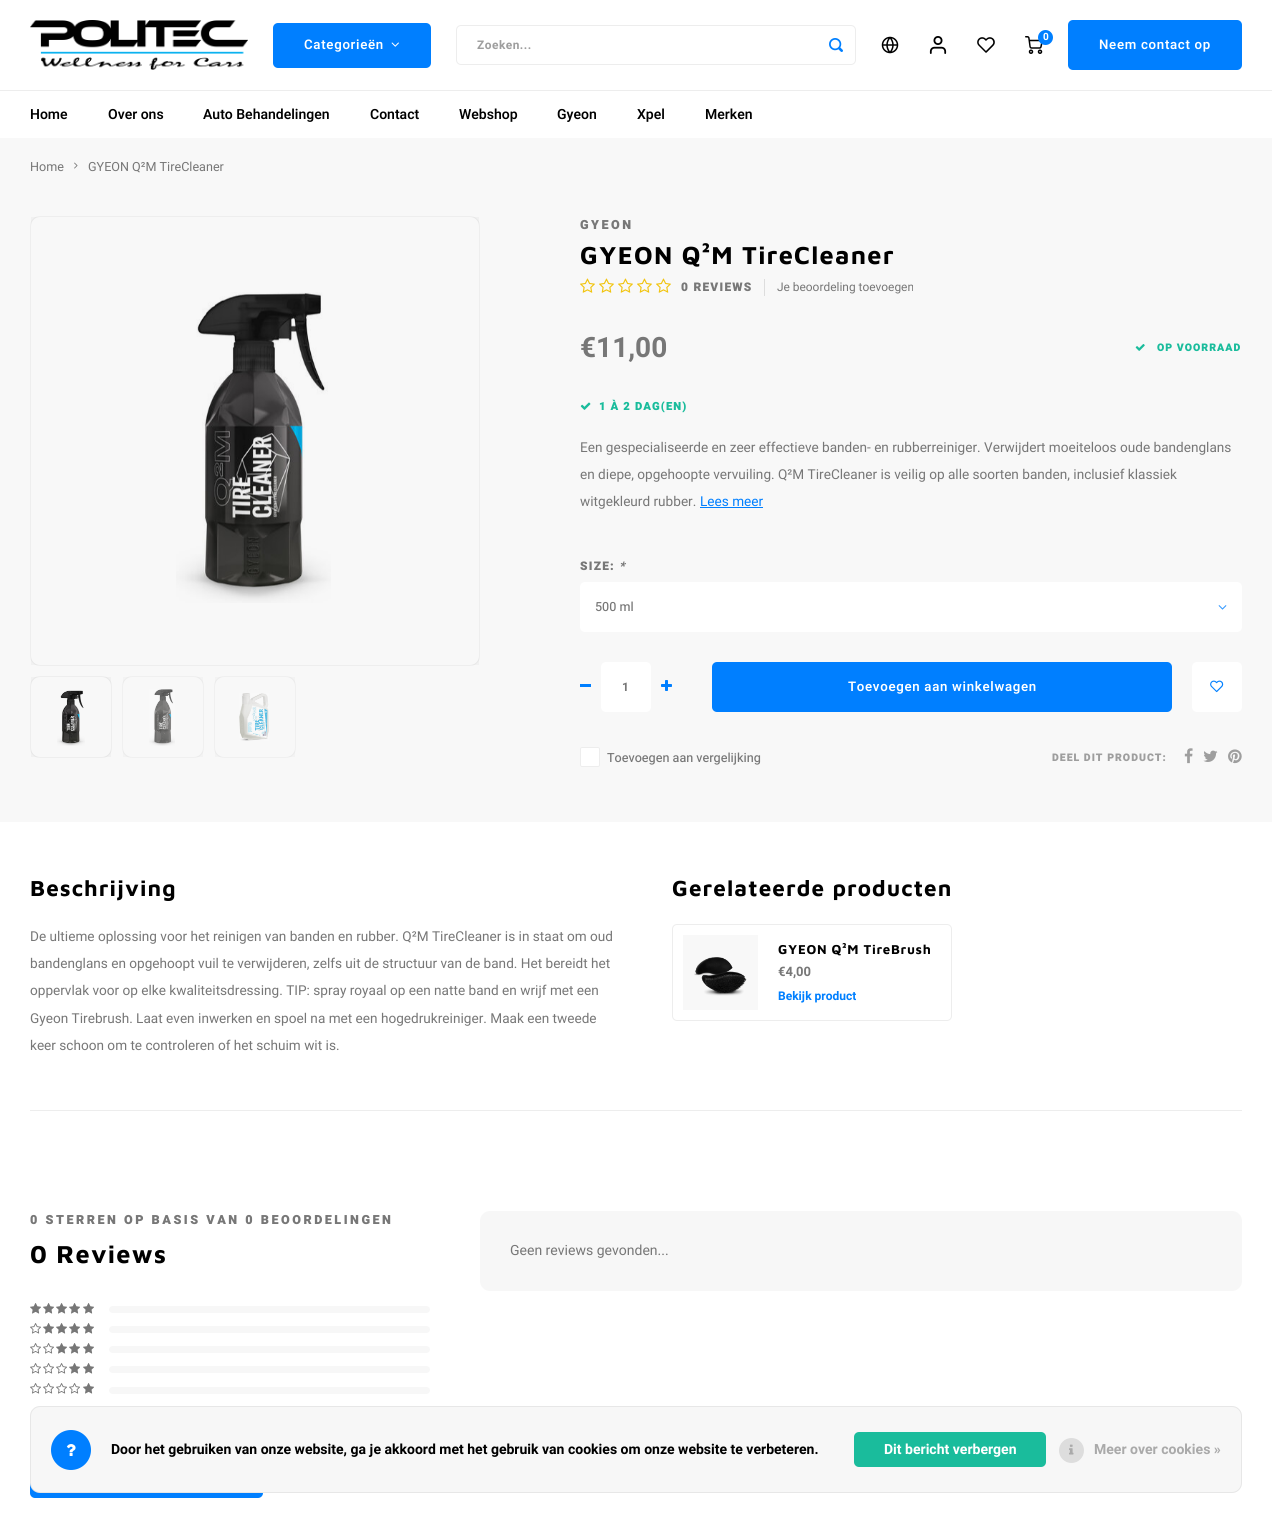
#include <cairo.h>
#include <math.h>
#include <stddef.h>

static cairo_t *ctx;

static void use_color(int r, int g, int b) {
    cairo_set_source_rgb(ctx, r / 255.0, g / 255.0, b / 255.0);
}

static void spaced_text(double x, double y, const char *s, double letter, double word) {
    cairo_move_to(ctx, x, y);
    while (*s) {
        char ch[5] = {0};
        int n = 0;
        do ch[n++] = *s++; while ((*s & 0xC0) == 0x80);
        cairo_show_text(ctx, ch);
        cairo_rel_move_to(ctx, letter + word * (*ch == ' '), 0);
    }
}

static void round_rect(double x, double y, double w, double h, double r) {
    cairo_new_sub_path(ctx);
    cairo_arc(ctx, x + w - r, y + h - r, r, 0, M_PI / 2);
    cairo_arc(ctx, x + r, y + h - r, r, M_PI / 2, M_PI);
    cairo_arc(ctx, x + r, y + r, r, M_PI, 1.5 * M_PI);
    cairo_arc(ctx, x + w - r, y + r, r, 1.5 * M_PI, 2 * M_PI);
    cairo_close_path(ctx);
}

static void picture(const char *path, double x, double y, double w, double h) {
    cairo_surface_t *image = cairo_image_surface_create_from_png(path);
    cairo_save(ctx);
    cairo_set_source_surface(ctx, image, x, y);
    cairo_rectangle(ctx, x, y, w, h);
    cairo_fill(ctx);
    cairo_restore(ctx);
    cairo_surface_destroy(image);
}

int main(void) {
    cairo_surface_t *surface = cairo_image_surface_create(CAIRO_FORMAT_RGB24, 1272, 1513);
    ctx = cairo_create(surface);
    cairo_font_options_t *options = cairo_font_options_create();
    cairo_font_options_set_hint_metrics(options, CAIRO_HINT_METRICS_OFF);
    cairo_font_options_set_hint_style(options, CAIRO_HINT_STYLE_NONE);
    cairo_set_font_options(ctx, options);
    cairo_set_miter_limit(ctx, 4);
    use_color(255, 255, 255);
    cairo_paint(ctx);
    picture("img1.png", 30, 20, 218, 50);
    picture("img2.png", 881, 36, 18, 18);
    picture("img3.png", 929, 36, 18, 18);
    picture("img4.png", 977, 37, 18, 16);
    picture("img5.png", 1025, 36, 18, 18);
    use_color(0, 127, 255);
    cairo_arc(ctx, 1045.5, 37.5, 7.5, 0, 2 * M_PI);
    cairo_fill(ctx);
    cairo_select_font_face(ctx, "Heebo", CAIRO_FONT_SLANT_NORMAL, CAIRO_FONT_WEIGHT_BOLD);
    cairo_set_font_size(ctx, 10);
    use_color(255, 255, 255);
    cairo_move_to(ctx, 1043, 40);
    cairo_show_text(ctx, "0");
    use_color(0, 127, 255);
    round_rect(273, 23, 158, 45, 5);
    cairo_fill(ctx);
    cairo_select_font_face(ctx, "Heebo SemiBold", CAIRO_FONT_SLANT_NORMAL, CAIRO_FONT_WEIGHT_NORMAL);
    cairo_set_font_size(ctx, 13.25);
    use_color(255, 255, 255);
    spaced_text(304, 49, "Categorieën", 0.7, 0);
    picture("img6.png", 391, 42, 8, 5);
    round_rect(456.5, 25.5, 399, 39, 4.5);
    use_color(237, 237, 237);
    cairo_set_line_width(ctx, 1);
    cairo_stroke(ctx);
    cairo_select_font_face(ctx, "Heebo", CAIRO_FONT_SLANT_NORMAL, CAIRO_FONT_WEIGHT_BOLD);
    cairo_set_font_size(ctx, 11.9);
    use_color(158, 158, 158);
    spaced_text(477, 49, "Zoeken...", 0.5, 0);
    picture("img7.png", 829, 38, 14, 14);
    use_color(0, 127, 255);
    round_rect(1068, 20, 174, 50, 5);
    cairo_fill(ctx);
    cairo_select_font_face(ctx, "Heebo SemiBold", CAIRO_FONT_SLANT_NORMAL, CAIRO_FONT_WEIGHT_NORMAL);
    cairo_set_font_size(ctx, 13.25);
    use_color(255, 255, 255);
    spaced_text(1099, 49, "Neem contact op", 0.7, 0);
    use_color(237, 237, 237);
    cairo_rectangle(ctx, 0, 90, 1272, 1);
    cairo_fill(ctx);
    cairo_set_font_size(ctx, 14);
    use_color(0, 0, 0);
    cairo_move_to(ctx, 30, 119);
    cairo_show_text(ctx, "Home");
    cairo_move_to(ctx, 108, 119);
    cairo_show_text(ctx, "Over ons");
    cairo_move_to(ctx, 203, 119);
    cairo_show_text(ctx, "Auto Behandelingen");
    cairo_move_to(ctx, 370, 119);
    cairo_show_text(ctx, "Contact");
    cairo_move_to(ctx, 459, 119);
    cairo_show_text(ctx, "Webshop");
    cairo_move_to(ctx, 557, 119);
    cairo_show_text(ctx, "Gyeon");
    cairo_move_to(ctx, 637, 119);
    cairo_show_text(ctx, "Xpel");
    cairo_move_to(ctx, 705, 119);
    cairo_show_text(ctx, "Merken");
    use_color(248, 248, 248);
    cairo_rectangle(ctx, 0, 138, 1272, 684);
    cairo_fill(ctx);
    cairo_select_font_face(ctx, "Heebo", CAIRO_FONT_SLANT_NORMAL, CAIRO_FONT_WEIGHT_NORMAL);
    cairo_set_font_size(ctx, 12.6);
    use_color(119, 119, 119);
    cairo_move_to(ctx, 30, 171);
    cairo_show_text(ctx, "Home");
    picture("img8.png", 74, 162, 4, 7);
    cairo_move_to(ctx, 88, 171);
    cairo_show_text(ctx, "GYEON Q²M TireCleaner");
    use_color(255, 255, 255);
    round_rect(30, 216, 450, 450, 10);
    cairo_fill(ctx);
    round_rect(30.5, 216.5, 449, 449, 9.5);
    cairo_set_source_rgba(ctx, 0, 0, 0, 0.07);
    cairo_stroke(ctx);
    picture("img9.png", 176, 292, 155, 311);
    cairo_set_source_rgba(ctx, 0, 0, 0, 0.03);
    cairo_rectangle(ctx, 31, 217, 448, 448);
    cairo_fill(ctx);
    use_color(255, 255, 255);
    round_rect(30, 676, 82, 82, 10);
    cairo_fill(ctx);
    round_rect(30.5, 676.5, 81, 81, 9.5);
    cairo_set_source_rgba(ctx, 0, 0, 0, 0.07);
    cairo_stroke(ctx);
    picture("img10.png", 57, 690, 28, 56);
    cairo_set_source_rgba(ctx, 0, 0, 0, 0.03);
    cairo_rectangle(ctx, 31, 677, 80, 80);
    cairo_fill(ctx);
    use_color(253, 253, 253);
    round_rect(122.5, 676.5, 81, 81, 9.5);
    cairo_fill_preserve(ctx);
    use_color(240, 240, 240);
    cairo_stroke(ctx);
    picture("img11.png", 149, 689, 26, 57);
    cairo_set_source_rgba(ctx, 0.29, 0.29, 0.29, 0.03);
    cairo_rectangle(ctx, 123, 677, 80, 80);
    cairo_fill(ctx);
    use_color(253, 253, 253);
    round_rect(214.5, 676.5, 81, 81, 9.5);
    cairo_fill_preserve(ctx);
    use_color(240, 240, 240);
    cairo_stroke(ctx);
    picture("img12.png", 239, 693, 30, 48);
    cairo_set_source_rgba(ctx, 0.29, 0.29, 0.29, 0.03);
    cairo_rectangle(ctx, 215, 677, 80, 80);
    cairo_fill(ctx);
    cairo_select_font_face(ctx, "Heebo Black", CAIRO_FONT_SLANT_NORMAL, CAIRO_FONT_WEIGHT_NORMAL);
    use_color(119, 119, 119);
    spaced_text(580, 229, "GYEON", 2.5, 0);
    cairo_select_font_face(ctx, "Maven Pro", CAIRO_FONT_SLANT_NORMAL, CAIRO_FONT_WEIGHT_BOLD);
    cairo_set_font_size(ctx, 25.25);
    use_color(0, 0, 0);
    spaced_text(580, 264, "GYEON Q²M TireCleaner", 1.25, 0);
    picture("img13.png", 580, 278, 15, 15);
    picture("img13.png", 599, 278, 15, 15);
    picture("img13.png", 618, 278, 15, 15);
    picture("img13.png", 637, 278, 15, 15);
    picture("img13.png", 656, 278, 15, 15);
    use_color(221, 221, 221);
    cairo_rectangle(ctx, 764, 279, 1, 17);
    cairo_fill(ctx);
    cairo_select_font_face(ctx, "Heebo Black", CAIRO_FONT_SLANT_NORMAL, CAIRO_FONT_WEIGHT_NORMAL);
    cairo_set_font_size(ctx, 11.9);
    use_color(119, 119, 119);
    spaced_text(681, 291, "0 REVIEWS", 1.25, 0);
    cairo_select_font_face(ctx, "Heebo", CAIRO_FONT_SLANT_NORMAL, CAIRO_FONT_WEIGHT_NORMAL);
    cairo_move_to(ctx, 777, 291);
    cairo_show_text(ctx, "Je beoordeling toevoegen");
    cairo_select_font_face(ctx, "Heebo", CAIRO_FONT_SLANT_NORMAL, CAIRO_FONT_WEIGHT_BOLD);
    cairo_set_font_size(ctx, 28);
    cairo_move_to(ctx, 580, 357);
    cairo_show_text(ctx, "€11,00");
    picture("img14.png", 1135, 344, 10, 7);
    cairo_select_font_face(ctx, "Heebo Black", CAIRO_FONT_SLANT_NORMAL, CAIRO_FONT_WEIGHT_NORMAL);
    cairo_set_font_size(ctx, 10.5);
    use_color(26, 188, 156);
    spaced_text(1157, 351, "OP VOORRAAD", 1, 0);
    picture("img15.png", 580, 402, 11, 8);
    cairo_set_font_size(ctx, 11.25);
    spaced_text(599, 410, "1 À 2 DAG(EN)", 1.1, 0);
    cairo_select_font_face(ctx, "Heebo", CAIRO_FONT_SLANT_NORMAL, CAIRO_FONT_WEIGHT_NORMAL);
    cairo_set_font_size(ctx, 13.6);
    use_color(119, 119, 119);
    cairo_move_to(ctx, 580, 452);
    cairo_show_text(ctx, "Een gespecialiseerde en zeer effectieve banden- en rubberreiniger. Verwijdert moeiteloos oude bandenglans");
    cairo_move_to(ctx, 580, 479);
    cairo_show_text(ctx, "en diepe, opgehoopte vervuiling. Q²M TireCleaner is veilig op alle soorten banden, inclusief klassiek");
    cairo_move_to(ctx, 580, 506);
    cairo_show_text(ctx, "witgekleurd rubber.");
    use_color(0, 127, 255);
    cairo_move_to(ctx, 700, 506);
    cairo_show_text(ctx, "Lees meer");
    cairo_rectangle(ctx, 700, 507, 63, 1);
    cairo_fill(ctx);
    cairo_select_font_face(ctx, "Heebo Black", CAIRO_FONT_SLANT_NORMAL, CAIRO_FONT_WEIGHT_NORMAL);
    cairo_set_font_size(ctx, 11.9);
    use_color(119, 119, 119);
    spaced_text(580, 570, "SIZE:", 1.25, 0);
    cairo_select_font_face(ctx, "Heebo Black", CAIRO_FONT_SLANT_ITALIC, CAIRO_FONT_WEIGHT_NORMAL);
    spaced_text(619, 570, "*", 1.25, 0);
    use_color(255, 255, 255);
    round_rect(580, 582, 662, 50, 5);
    cairo_fill(ctx);
    cairo_select_font_face(ctx, "Heebo Medium", CAIRO_FONT_SLANT_NORMAL, CAIRO_FONT_WEIGHT_NORMAL);
    cairo_set_font_size(ctx, 12.6);
    use_color(119, 119, 119);
    cairo_move_to(ctx, 595, 611);
    cairo_show_text(ctx, "500 ml");
    picture("img16.png", 1218, 605, 9, 5);
    use_color(0, 127, 255);
    cairo_rectangle(ctx, 580, 684, 11, 3);
    cairo_fill(ctx);
    use_color(255, 255, 255);
    round_rect(601, 662, 50, 50, 5);
    cairo_fill(ctx);
    cairo_select_font_face(ctx, "Heebo", CAIRO_FONT_SLANT_NORMAL, CAIRO_FONT_WEIGHT_BOLD);
    cairo_set_font_size(ctx, 11.9);
    use_color(119, 119, 119);
    spaced_text(622, 691, "1", 0.5, 0);
    picture("img17.png", 661, 680, 11, 11);
    use_color(0, 127, 255);
    round_rect(712, 662, 460, 50, 5);
    cairo_fill(ctx);
    cairo_select_font_face(ctx, "Heebo SemiBold", CAIRO_FONT_SLANT_NORMAL, CAIRO_FONT_WEIGHT_NORMAL);
    cairo_set_font_size(ctx, 13.25);
    use_color(255, 255, 255);
    spaced_text(848, 691, "Toevoegen aan winkelwagen", 0.7, 0);
    round_rect(1192, 662, 50, 50, 5);
    cairo_fill(ctx);
    picture("img18.png", 1210, 680, 14, 13);
    round_rect(580.5, 747.5, 19, 19, 1.5);
    cairo_fill_preserve(ctx);
    use_color(237, 237, 237);
    cairo_stroke(ctx);
    cairo_select_font_face(ctx, "Heebo Medium", CAIRO_FONT_SLANT_NORMAL, CAIRO_FONT_WEIGHT_NORMAL);
    cairo_set_font_size(ctx, 12.6);
    use_color(119, 119, 119);
    cairo_move_to(ctx, 607, 762);
    cairo_show_text(ctx, "Toevoegen aan vergelijking");
    cairo_select_font_face(ctx, "Heebo Black", CAIRO_FONT_SLANT_NORMAL, CAIRO_FONT_WEIGHT_NORMAL);
    cairo_set_font_size(ctx, 10.5);
    use_color(158, 158, 158);
    spaced_text(1052, 761, "DEEL DIT PRODUCT:", 1, 0);
    picture("img19.png", 1184, 748, 9, 16);
    picture("img20.png", 1203, 750, 15, 12);
    picture("img21.png", 1228, 749, 14, 15);
    use_color(237, 237, 237);
    cairo_rectangle(ctx, 30, 1110, 1212, 1);
    cairo_fill(ctx);
    cairo_select_font_face(ctx, "Maven Pro", CAIRO_FONT_SLANT_NORMAL, CAIRO_FONT_WEIGHT_BOLD);
    cairo_set_font_size(ctx, 22.4);
    use_color(0, 0, 0);
    spaced_text(30, 896, "Beschrijving", 1.1, 0);
    cairo_select_font_face(ctx, "Heebo", CAIRO_FONT_SLANT_NORMAL, CAIRO_FONT_WEIGHT_NORMAL);
    cairo_set_font_size(ctx, 13.6);
    use_color(119, 119, 119);
    cairo_move_to(ctx, 30, 941);
    cairo_show_text(ctx, "De ultieme oplossing voor het reinigen van banden en rubber. Q²M TireCleaner is in staat om oud");
    cairo_move_to(ctx, 30, 968);
    cairo_show_text(ctx, "bandenglans en opgehoopt vuil te verwijderen, zelfs uit de structuur van de band. Het bereidt het");
    cairo_move_to(ctx, 30, 995);
    cairo_show_text(ctx, "oppervlak voor op elke kwaliteitsdressing. TIP: spray royaal op een natte band en wrijf met een");
    cairo_move_to(ctx, 30, 1023);
    cairo_show_text(ctx, "Gyeon Tirebrush. Laat even inwerken en spoel na met een hogedrukreiniger. Maak een tweede");
    cairo_move_to(ctx, 30, 1050);
    cairo_show_text(ctx, "keer schoon om te controleren of het schuim wit is.");
    cairo_select_font_face(ctx, "Maven Pro", CAIRO_FONT_SLANT_NORMAL, CAIRO_FONT_WEIGHT_BOLD);
    cairo_set_font_size(ctx, 22.4);
    use_color(0, 0, 0);
    spaced_text(672, 896, "Gerelateerde producten", 1.1, 0);
    round_rect(672.5, 924.5, 279, 96, 4.5);
    use_color(237, 237, 237);
    cairo_stroke(ctx);
    picture("img22.png", 694, 957, 53, 39);
    cairo_set_source_rgba(ctx, 0, 0, 0, 0.03);
    cairo_rectangle(ctx, 683, 935, 75, 75);
    cairo_fill(ctx);
    cairo_set_font_size(ctx, 13.25);
    use_color(0, 0, 0);
    spaced_text(778, 954, "GYEON Q²M TireBrush", 0.7, 0);
    cairo_select_font_face(ctx, "Heebo", CAIRO_FONT_SLANT_NORMAL, CAIRO_FONT_WEIGHT_BOLD);
    cairo_set_font_size(ctx, 13);
    use_color(119, 119, 119);
    cairo_move_to(ctx, 778, 976);
    cairo_show_text(ctx, "€4,00");
    cairo_set_font_size(ctx, 12);
    use_color(0, 127, 255);
    cairo_move_to(ctx, 778, 1000);
    cairo_show_text(ctx, "Bekijk product");
    cairo_select_font_face(ctx, "Heebo Black", CAIRO_FONT_SLANT_NORMAL, CAIRO_FONT_WEIGHT_NORMAL);
    cairo_set_font_size(ctx, 12.6);
    use_color(119, 119, 119);
    spaced_text(30, 1224, "0 STERREN OP BASIS VAN 0 BEOORDELINGEN", 2.5, 0);
    cairo_select_font_face(ctx, "Maven Pro", CAIRO_FONT_SLANT_NORMAL, CAIRO_FONT_WEIGHT_BOLD);
    cairo_set_font_size(ctx, 25.25);
    use_color(0, 0, 0);
    spaced_text(30, 1263, "0 Reviews", 1.25, 0);
    picture("img23.png", 30, 1303, 11, 11);
    picture("img23.png", 43, 1303, 11, 11);
    picture("img23.png", 56, 1303, 11, 11);
    picture("img23.png", 69, 1303, 11, 11);
    picture("img23.png", 83, 1303, 11, 11);
    use_color(247, 247, 247);
    round_rect(109, 1306, 321, 7, 3.5);
    cairo_fill(ctx);
    picture("img24.png", 30, 1323, 11, 11);
    picture("img23.png", 43, 1323, 11, 11);
    picture("img23.png", 56, 1323, 11, 11);
    picture("img23.png", 69, 1323, 11, 11);
    picture("img23.png", 83, 1323, 11, 11);
    round_rect(109, 1326, 321, 7, 3.5);
    cairo_fill(ctx);
    picture("img24.png", 30, 1343, 11, 11);
    picture("img24.png", 43, 1343, 11, 11);
    picture("img23.png", 56, 1343, 11, 11);
    picture("img23.png", 69, 1343, 11, 11);
    picture("img23.png", 83, 1343, 11, 11);
    round_rect(109, 1346, 321, 7, 3.5);
    cairo_fill(ctx);
    picture("img24.png", 30, 1363, 11, 11);
    picture("img24.png", 43, 1363, 11, 11);
    picture("img24.png", 56, 1363, 11, 11);
    picture("img23.png", 69, 1363, 11, 11);
    picture("img23.png", 83, 1363, 11, 11);
    round_rect(109, 1366, 321, 7, 3.5);
    cairo_fill(ctx);
    picture("img24.png", 30, 1383, 11, 11);
    picture("img24.png", 43, 1383, 11, 11);
    picture("img24.png", 56, 1383, 11, 11);
    picture("img24.png", 69, 1383, 11, 11);
    picture("img23.png", 83, 1383, 11, 11);
    round_rect(109, 1387, 321, 7, 3.5);
    cairo_fill(ctx);
    use_color(0, 127, 255);
    round_rect(30, 1448, 233, 50, 5);
    cairo_fill(ctx);
    use_color(247, 247, 247);
    round_rect(480, 1211, 762, 80, 10);
    cairo_fill(ctx);
    cairo_select_font_face(ctx, "Heebo", CAIRO_FONT_SLANT_NORMAL, CAIRO_FONT_WEIGHT_NORMAL);
    cairo_set_font_size(ctx, 14);
    use_color(119, 119, 119);
    cairo_move_to(ctx, 510, 1255);
    cairo_show_text(ctx, "Geen reviews gevonden...");
    use_color(247, 247, 247);
    round_rect(30, 1406, 1212, 87, 10);
    cairo_fill(ctx);
    round_rect(30.5, 1406.5, 1211, 86, 9.5);
    cairo_set_source_rgba(ctx, 0, 0, 0, 0.07);
    cairo_stroke(ctx);
    use_color(0, 127, 255);
    cairo_arc(ctx, 71, 1450, 20, 0, 2 * M_PI);
    cairo_fill(ctx);
    picture("img25.png", 66, 1444, 10, 12);
    cairo_select_font_face(ctx, "Heebo", CAIRO_FONT_SLANT_NORMAL, CAIRO_FONT_WEIGHT_BOLD);
    use_color(0, 0, 0);
    cairo_move_to(ctx, 111, 1454);
    cairo_show_text(ctx, "Door het gebruiken van onze website, ga je akkoord met het gebruik van cookies om onze website te verbeteren.");
    use_color(26, 188, 156);
    round_rect(854, 1432, 192, 35, 5);
    cairo_fill(ctx);
    use_color(255, 255, 255);
    cairo_move_to(ctx, 884, 1454);
    cairo_show_text(ctx, "Dit bericht verbergen");
    use_color(221, 221, 221);
    cairo_new_path(ctx);
    cairo_arc(ctx, 1071.5, 1450.5, 12.5, 0, 2 * M_PI);
    cairo_fill(ctx);
    picture("img26.png", 1069, 1444, 5, 11);
    use_color(170, 170, 170);
    cairo_move_to(ctx, 1094, 1454);
    cairo_show_text(ctx, "Meer over cookies »");
    cairo_surface_write_to_png(surface, "result.png");
    cairo_font_options_destroy(options);
    cairo_destroy(ctx);
    cairo_surface_destroy(surface);
    return 0;
}
